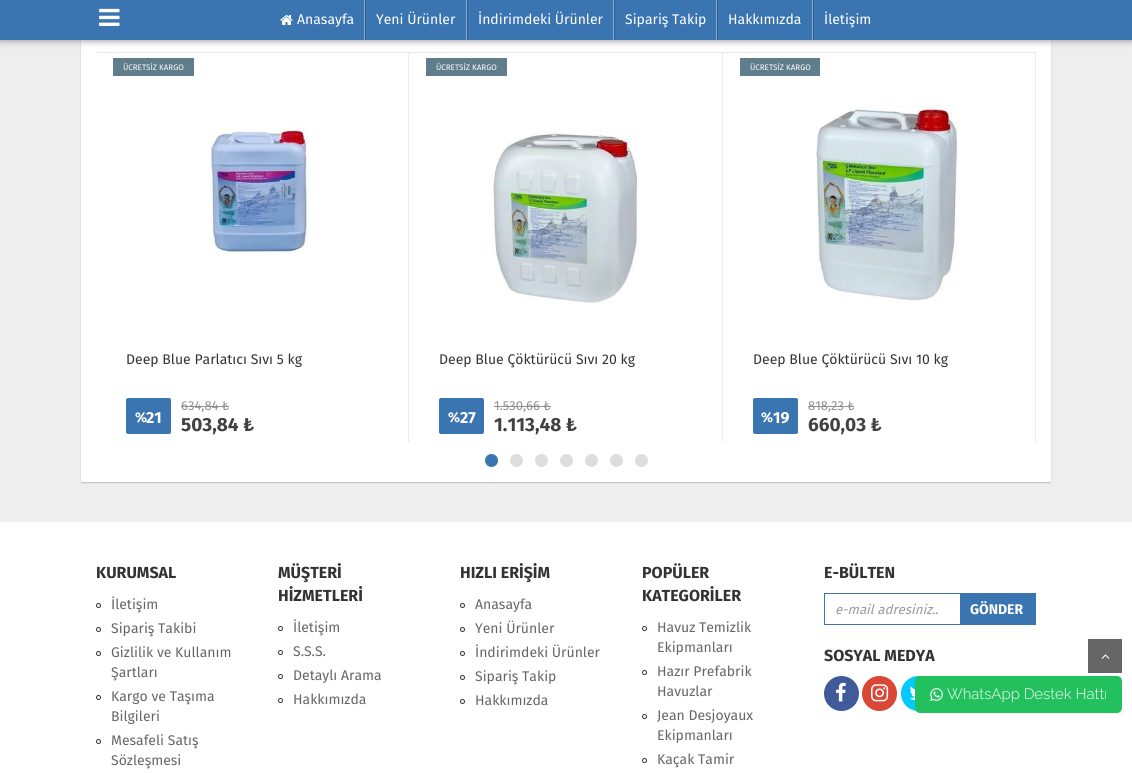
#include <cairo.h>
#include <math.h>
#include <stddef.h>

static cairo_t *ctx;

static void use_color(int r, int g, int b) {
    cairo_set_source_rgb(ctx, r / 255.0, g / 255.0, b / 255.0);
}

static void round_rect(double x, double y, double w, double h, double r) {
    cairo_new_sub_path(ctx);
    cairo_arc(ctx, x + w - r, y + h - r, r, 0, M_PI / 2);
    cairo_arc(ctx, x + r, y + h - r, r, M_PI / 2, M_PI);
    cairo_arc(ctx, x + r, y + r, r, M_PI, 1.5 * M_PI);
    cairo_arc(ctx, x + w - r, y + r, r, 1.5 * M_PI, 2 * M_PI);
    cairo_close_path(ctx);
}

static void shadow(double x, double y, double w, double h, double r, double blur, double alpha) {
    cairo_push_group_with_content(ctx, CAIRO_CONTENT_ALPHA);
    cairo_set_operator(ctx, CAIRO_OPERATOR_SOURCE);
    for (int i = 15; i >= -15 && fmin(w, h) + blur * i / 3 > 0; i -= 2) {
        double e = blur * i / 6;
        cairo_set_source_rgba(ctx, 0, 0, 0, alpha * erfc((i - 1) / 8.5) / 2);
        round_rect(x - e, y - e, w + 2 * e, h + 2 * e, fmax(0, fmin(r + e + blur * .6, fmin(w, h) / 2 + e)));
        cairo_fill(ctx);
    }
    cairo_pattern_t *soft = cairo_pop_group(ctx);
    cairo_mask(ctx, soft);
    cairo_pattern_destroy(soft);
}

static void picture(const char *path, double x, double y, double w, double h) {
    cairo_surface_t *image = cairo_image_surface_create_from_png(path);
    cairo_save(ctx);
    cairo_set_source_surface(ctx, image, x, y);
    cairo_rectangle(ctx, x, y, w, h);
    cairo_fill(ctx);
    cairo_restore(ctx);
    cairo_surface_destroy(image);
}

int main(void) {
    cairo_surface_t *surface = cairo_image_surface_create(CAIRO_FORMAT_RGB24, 1132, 773);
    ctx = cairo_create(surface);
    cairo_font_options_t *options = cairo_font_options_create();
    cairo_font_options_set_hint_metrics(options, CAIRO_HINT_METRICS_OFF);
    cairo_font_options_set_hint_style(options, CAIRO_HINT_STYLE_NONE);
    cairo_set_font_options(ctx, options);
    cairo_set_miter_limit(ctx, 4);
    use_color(238, 238, 238);
    cairo_paint(ctx);
    use_color(0, 0, 0);
    shadow(81, 6, 970, 477, 0, 0.5, 0.2);
    use_color(255, 255, 255);
    cairo_rectangle(ctx, 81, 40, 970, 442);
    cairo_fill(ctx);
    use_color(229, 229, 229);
    cairo_rectangle(ctx, 96, 52, 940, 1);
    cairo_fill(ctx);
    use_color(156, 156, 156);
    shadow(0, 1, 1132, 40, 0, 3.5, 1);
    use_color(58, 117, 177);
    cairo_rectangle(ctx, 0, 0, 1132, 40);
    cairo_fill(ctx);
    picture("img1.png", 99, 8, 21, 18);
    use_color(133, 169, 207);
    cairo_rectangle(ctx, 364, 0, 1, 40);
    cairo_fill(ctx);
    picture("img2.png", 280, 15, 13, 10);
    cairo_select_font_face(ctx, "Fira Sans", CAIRO_FONT_SLANT_NORMAL, CAIRO_FONT_WEIGHT_NORMAL);
    cairo_set_font_size(ctx, 14);
    use_color(255, 255, 255);
    cairo_move_to(ctx, 297, 24);
    cairo_show_text(ctx, "Anasayfa");
    use_color(133, 169, 207);
    cairo_rectangle(ctx, 466, 0, 1, 40);
    cairo_fill(ctx);
    use_color(46, 94, 142);
    cairo_rectangle(ctx, 365, 0, 1, 40);
    cairo_fill(ctx);
    use_color(255, 255, 255);
    cairo_move_to(ctx, 376, 24);
    cairo_show_text(ctx, "Yeni Ürünler");
    use_color(133, 169, 207);
    cairo_rectangle(ctx, 613, 0, 1, 40);
    cairo_fill(ctx);
    use_color(46, 94, 142);
    cairo_rectangle(ctx, 467, 0, 1, 40);
    cairo_fill(ctx);
    use_color(255, 255, 255);
    cairo_move_to(ctx, 478, 24);
    cairo_show_text(ctx, "İndirimdeki Ürünler");
    use_color(133, 169, 207);
    cairo_rectangle(ctx, 716, 0, 1, 40);
    cairo_fill(ctx);
    use_color(46, 94, 142);
    cairo_rectangle(ctx, 614, 0, 1, 40);
    cairo_fill(ctx);
    use_color(255, 255, 255);
    cairo_move_to(ctx, 625, 24);
    cairo_show_text(ctx, "Sipariş Takip");
    use_color(133, 169, 207);
    cairo_rectangle(ctx, 812, 0, 1, 40);
    cairo_fill(ctx);
    use_color(46, 94, 142);
    cairo_rectangle(ctx, 717, 0, 1, 40);
    cairo_fill(ctx);
    use_color(255, 255, 255);
    cairo_move_to(ctx, 728, 24);
    cairo_show_text(ctx, "Hakkımızda");
    use_color(46, 94, 142);
    cairo_rectangle(ctx, 813, 0, 1, 40);
    cairo_fill(ctx);
    use_color(255, 255, 255);
    cairo_move_to(ctx, 824, 24);
    cairo_show_text(ctx, "İletişim");
    use_color(236, 236, 236);
    cairo_rectangle(ctx, 408, 53, 1, 389);
    cairo_fill(ctx);
    use_color(96, 125, 139);
    cairo_rectangle(ctx, 113, 58, 81, 18);
    cairo_fill(ctx);
    cairo_set_font_size(ctx, 8);
    use_color(255, 255, 255);
    cairo_move_to(ctx, 123, 70);
    cairo_show_text(ctx, "ÜCRETSİZ KARGO");
    picture("img3.png", 208, 127, 102, 125);
    cairo_set_font_size(ctx, 14);
    use_color(51, 51, 51);
    cairo_move_to(ctx, 126, 364);
    cairo_show_text(ctx, "Deep Blue Parlatıcı Sıvı 5 kg");
    cairo_set_font_size(ctx, 13);
    use_color(145, 145, 145);
    cairo_move_to(ctx, 181, 410);
    cairo_show_text(ctx, "634,84 ₺");
    cairo_rectangle(ctx, 181, 406, 48, 1);
    cairo_fill(ctx);
    use_color(58, 117, 177);
    round_rect(126, 398, 45, 36, 2);
    cairo_fill(ctx);
    cairo_select_font_face(ctx, "Fira Sans", CAIRO_FONT_SLANT_NORMAL, CAIRO_FONT_WEIGHT_BOLD);
    cairo_set_font_size(ctx, 14);
    use_color(255, 255, 255);
    cairo_move_to(ctx, 135, 422);
    cairo_show_text(ctx, "%");
    cairo_set_font_size(ctx, 16);
    cairo_move_to(ctx, 146, 423);
    cairo_show_text(ctx, "21");
    cairo_set_font_size(ctx, 19);
    use_color(65, 65, 65);
    cairo_move_to(ctx, 181, 431);
    cairo_show_text(ctx, "503,84 ₺");
    use_color(236, 236, 236);
    cairo_rectangle(ctx, 722, 53, 1, 389);
    cairo_fill(ctx);
    use_color(96, 125, 139);
    cairo_rectangle(ctx, 426, 58, 81, 18);
    cairo_fill(ctx);
    cairo_select_font_face(ctx, "Fira Sans", CAIRO_FONT_SLANT_NORMAL, CAIRO_FONT_WEIGHT_NORMAL);
    cairo_set_font_size(ctx, 8);
    use_color(255, 255, 255);
    cairo_move_to(ctx, 436, 70);
    cairo_show_text(ctx, "ÜCRETSİZ KARGO");
    picture("img4.png", 492, 131, 147, 173);
    cairo_set_font_size(ctx, 14);
    use_color(51, 51, 51);
    cairo_move_to(ctx, 439, 364);
    cairo_show_text(ctx, "Deep Blue Çöktürücü Sıvı 20 kg");
    cairo_set_font_size(ctx, 13);
    use_color(145, 145, 145);
    cairo_move_to(ctx, 494, 410);
    cairo_show_text(ctx, "1.530,66 ₺");
    cairo_rectangle(ctx, 494, 406, 57, 1);
    cairo_fill(ctx);
    use_color(58, 117, 177);
    round_rect(439, 398, 45, 36, 2);
    cairo_fill(ctx);
    cairo_select_font_face(ctx, "Fira Sans", CAIRO_FONT_SLANT_NORMAL, CAIRO_FONT_WEIGHT_BOLD);
    cairo_set_font_size(ctx, 14);
    use_color(255, 255, 255);
    cairo_move_to(ctx, 448, 422);
    cairo_show_text(ctx, "%");
    cairo_set_font_size(ctx, 16);
    cairo_move_to(ctx, 460, 423);
    cairo_show_text(ctx, "27");
    cairo_set_font_size(ctx, 19);
    use_color(65, 65, 65);
    cairo_move_to(ctx, 494, 431);
    cairo_show_text(ctx, "1.113,48 ₺");
    use_color(236, 236, 236);
    cairo_rectangle(ctx, 1035, 53, 1, 389);
    cairo_fill(ctx);
    use_color(96, 125, 139);
    cairo_rectangle(ctx, 740, 58, 80, 18);
    cairo_fill(ctx);
    cairo_select_font_face(ctx, "Fira Sans", CAIRO_FONT_SLANT_NORMAL, CAIRO_FONT_WEIGHT_NORMAL);
    cairo_set_font_size(ctx, 8);
    use_color(255, 255, 255);
    cairo_move_to(ctx, 750, 70);
    cairo_show_text(ctx, "ÜCRETSİZ KARGO");
    picture("img5.png", 816, 105, 142, 199);
    cairo_set_font_size(ctx, 14);
    use_color(51, 51, 51);
    cairo_move_to(ctx, 753, 364);
    cairo_show_text(ctx, "Deep Blue Çöktürücü Sıvı 10 kg");
    cairo_set_font_size(ctx, 13);
    use_color(145, 145, 145);
    cairo_move_to(ctx, 808, 410);
    cairo_show_text(ctx, "818,23 ₺");
    cairo_rectangle(ctx, 808, 406, 46, 1);
    cairo_fill(ctx);
    use_color(58, 117, 177);
    round_rect(753, 398, 45, 36, 2);
    cairo_fill(ctx);
    cairo_select_font_face(ctx, "Fira Sans", CAIRO_FONT_SLANT_NORMAL, CAIRO_FONT_WEIGHT_BOLD);
    cairo_set_font_size(ctx, 14);
    use_color(255, 255, 255);
    cairo_move_to(ctx, 761, 422);
    cairo_show_text(ctx, "%");
    cairo_set_font_size(ctx, 16);
    cairo_move_to(ctx, 773, 423);
    cairo_show_text(ctx, "19");
    cairo_set_font_size(ctx, 19);
    use_color(65, 65, 65);
    cairo_move_to(ctx, 808, 431);
    cairo_show_text(ctx, "660,03 ₺");
    use_color(58, 117, 177);
    cairo_new_path(ctx);
    cairo_arc(ctx, 491.5, 460.5, 6.5, 0, 2 * M_PI);
    cairo_fill(ctx);
    use_color(221, 221, 221);
    cairo_arc(ctx, 516.5, 460.5, 6.5, 0, 2 * M_PI);
    cairo_fill(ctx);
    cairo_arc(ctx, 541.5, 460.5, 6.5, 0, 2 * M_PI);
    cairo_fill(ctx);
    cairo_arc(ctx, 566.5, 460.5, 6.5, 0, 2 * M_PI);
    cairo_fill(ctx);
    cairo_arc(ctx, 591.5, 460.5, 6.5, 0, 2 * M_PI);
    cairo_fill(ctx);
    cairo_arc(ctx, 616.5, 460.5, 6.5, 0, 2 * M_PI);
    cairo_fill(ctx);
    cairo_arc(ctx, 641.5, 460.5, 6.5, 0, 2 * M_PI);
    cairo_fill(ctx);
    use_color(255, 255, 255);
    cairo_rectangle(ctx, 0, 522, 1132, 251);
    cairo_fill(ctx);
    cairo_set_font_size(ctx, 16);
    use_color(51, 51, 51);
    cairo_move_to(ctx, 96, 578);
    cairo_show_text(ctx, "KURUMSAL");
    cairo_new_path(ctx);
    cairo_arc(ctx, 98.5, 605.5, 2, 0, 2 * M_PI);
    cairo_set_line_width(ctx, 1);
    cairo_stroke(ctx);
    cairo_select_font_face(ctx, "Fira Sans", CAIRO_FONT_SLANT_NORMAL, CAIRO_FONT_WEIGHT_NORMAL);
    cairo_set_font_size(ctx, 14);
    use_color(102, 102, 102);
    cairo_move_to(ctx, 111, 609);
    cairo_show_text(ctx, "İletişim");
    cairo_new_path(ctx);
    cairo_arc(ctx, 98.5, 629.5, 2, 0, 2 * M_PI);
    use_color(51, 51, 51);
    cairo_stroke(ctx);
    use_color(102, 102, 102);
    cairo_move_to(ctx, 111, 633);
    cairo_show_text(ctx, "Sipariş Takibi");
    cairo_new_path(ctx);
    cairo_arc(ctx, 98.5, 653.5, 2, 0, 2 * M_PI);
    use_color(51, 51, 51);
    cairo_stroke(ctx);
    use_color(102, 102, 102);
    cairo_move_to(ctx, 111, 657);
    cairo_show_text(ctx, "Gizlilik ve Kullanım");
    cairo_move_to(ctx, 111, 677);
    cairo_show_text(ctx, "Şartları");
    cairo_new_path(ctx);
    cairo_arc(ctx, 98.5, 697.5, 2, 0, 2 * M_PI);
    use_color(51, 51, 51);
    cairo_stroke(ctx);
    use_color(102, 102, 102);
    cairo_move_to(ctx, 111, 701);
    cairo_show_text(ctx, "Kargo ve Taşıma");
    cairo_move_to(ctx, 111, 721);
    cairo_show_text(ctx, "Bilgileri");
    cairo_new_path(ctx);
    cairo_arc(ctx, 98.5, 741.5, 2, 0, 2 * M_PI);
    use_color(51, 51, 51);
    cairo_stroke(ctx);
    use_color(102, 102, 102);
    cairo_move_to(ctx, 111, 745);
    cairo_show_text(ctx, "Mesafeli Satış");
    cairo_move_to(ctx, 111, 765);
    cairo_show_text(ctx, "Sözleşmesi");
    cairo_select_font_face(ctx, "Fira Sans", CAIRO_FONT_SLANT_NORMAL, CAIRO_FONT_WEIGHT_BOLD);
    cairo_set_font_size(ctx, 16);
    use_color(51, 51, 51);
    cairo_move_to(ctx, 278, 578);
    cairo_show_text(ctx, "MÜŞTERİ");
    cairo_move_to(ctx, 278, 601);
    cairo_show_text(ctx, "HİZMETLERİ");
    cairo_new_path(ctx);
    cairo_arc(ctx, 280.5, 628.5, 2, 0, 2 * M_PI);
    cairo_stroke(ctx);
    cairo_select_font_face(ctx, "Fira Sans", CAIRO_FONT_SLANT_NORMAL, CAIRO_FONT_WEIGHT_NORMAL);
    cairo_set_font_size(ctx, 14);
    use_color(102, 102, 102);
    cairo_move_to(ctx, 293, 632);
    cairo_show_text(ctx, "İletişim");
    cairo_new_path(ctx);
    cairo_arc(ctx, 280.5, 652.5, 2, 0, 2 * M_PI);
    use_color(51, 51, 51);
    cairo_stroke(ctx);
    use_color(102, 102, 102);
    cairo_move_to(ctx, 293, 656);
    cairo_show_text(ctx, "S.S.S.");
    cairo_new_path(ctx);
    cairo_arc(ctx, 280.5, 676.5, 2, 0, 2 * M_PI);
    use_color(51, 51, 51);
    cairo_stroke(ctx);
    use_color(102, 102, 102);
    cairo_move_to(ctx, 293, 680);
    cairo_show_text(ctx, "Detaylı Arama");
    cairo_new_path(ctx);
    cairo_arc(ctx, 280.5, 700.5, 2, 0, 2 * M_PI);
    use_color(51, 51, 51);
    cairo_stroke(ctx);
    use_color(102, 102, 102);
    cairo_move_to(ctx, 293, 704);
    cairo_show_text(ctx, "Hakkımızda");
    cairo_select_font_face(ctx, "Fira Sans", CAIRO_FONT_SLANT_NORMAL, CAIRO_FONT_WEIGHT_BOLD);
    cairo_set_font_size(ctx, 16);
    use_color(51, 51, 51);
    cairo_move_to(ctx, 460, 578);
    cairo_show_text(ctx, "HIZLI ERİŞİM");
    cairo_new_path(ctx);
    cairo_arc(ctx, 462.5, 605.5, 2, 0, 2 * M_PI);
    cairo_stroke(ctx);
    cairo_select_font_face(ctx, "Fira Sans", CAIRO_FONT_SLANT_NORMAL, CAIRO_FONT_WEIGHT_NORMAL);
    cairo_set_font_size(ctx, 14);
    use_color(102, 102, 102);
    cairo_move_to(ctx, 475, 609);
    cairo_show_text(ctx, "Anasayfa");
    cairo_new_path(ctx);
    cairo_arc(ctx, 462.5, 629.5, 2, 0, 2 * M_PI);
    use_color(51, 51, 51);
    cairo_stroke(ctx);
    use_color(102, 102, 102);
    cairo_move_to(ctx, 475, 633);
    cairo_show_text(ctx, "Yeni Ürünler");
    cairo_new_path(ctx);
    cairo_arc(ctx, 462.5, 653.5, 2, 0, 2 * M_PI);
    use_color(51, 51, 51);
    cairo_stroke(ctx);
    use_color(102, 102, 102);
    cairo_move_to(ctx, 475, 657);
    cairo_show_text(ctx, "İndirimdeki Ürünler");
    cairo_new_path(ctx);
    cairo_arc(ctx, 462.5, 677.5, 2, 0, 2 * M_PI);
    use_color(51, 51, 51);
    cairo_stroke(ctx);
    use_color(102, 102, 102);
    cairo_move_to(ctx, 475, 681);
    cairo_show_text(ctx, "Sipariş Takip");
    cairo_new_path(ctx);
    cairo_arc(ctx, 462.5, 701.5, 2, 0, 2 * M_PI);
    use_color(51, 51, 51);
    cairo_stroke(ctx);
    use_color(102, 102, 102);
    cairo_move_to(ctx, 475, 705);
    cairo_show_text(ctx, "Hakkımızda");
    cairo_select_font_face(ctx, "Fira Sans", CAIRO_FONT_SLANT_NORMAL, CAIRO_FONT_WEIGHT_BOLD);
    cairo_set_font_size(ctx, 16);
    use_color(51, 51, 51);
    cairo_move_to(ctx, 642, 578);
    cairo_show_text(ctx, "POPÜLER");
    cairo_move_to(ctx, 642, 601);
    cairo_show_text(ctx, "KATEGORİLER");
    cairo_new_path(ctx);
    cairo_arc(ctx, 644.5, 628.5, 2, 0, 2 * M_PI);
    cairo_stroke(ctx);
    cairo_select_font_face(ctx, "Fira Sans", CAIRO_FONT_SLANT_NORMAL, CAIRO_FONT_WEIGHT_NORMAL);
    cairo_set_font_size(ctx, 14);
    use_color(102, 102, 102);
    cairo_move_to(ctx, 657, 632);
    cairo_show_text(ctx, "Havuz Temizlik");
    cairo_move_to(ctx, 657, 652);
    cairo_show_text(ctx, "Ekipmanları");
    cairo_new_path(ctx);
    cairo_arc(ctx, 644.5, 672.5, 2, 0, 2 * M_PI);
    use_color(51, 51, 51);
    cairo_stroke(ctx);
    use_color(102, 102, 102);
    cairo_move_to(ctx, 657, 676);
    cairo_show_text(ctx, "Hazır Prefabrik");
    cairo_move_to(ctx, 657, 696);
    cairo_show_text(ctx, "Havuzlar");
    cairo_new_path(ctx);
    cairo_arc(ctx, 644.5, 716.5, 2, 0, 2 * M_PI);
    use_color(51, 51, 51);
    cairo_stroke(ctx);
    use_color(102, 102, 102);
    cairo_move_to(ctx, 657, 720);
    cairo_show_text(ctx, "Jean Desjoyaux");
    cairo_move_to(ctx, 657, 740);
    cairo_show_text(ctx, "Ekipmanları");
    cairo_new_path(ctx);
    cairo_arc(ctx, 644.5, 760.5, 2, 0, 2 * M_PI);
    use_color(51, 51, 51);
    cairo_stroke(ctx);
    use_color(102, 102, 102);
    cairo_move_to(ctx, 657, 764);
    cairo_show_text(ctx, "Kaçak Tamir");
    cairo_select_font_face(ctx, "Fira Sans", CAIRO_FONT_SLANT_NORMAL, CAIRO_FONT_WEIGHT_BOLD);
    cairo_set_font_size(ctx, 16);
    use_color(51, 51, 51);
    cairo_move_to(ctx, 824, 578);
    cairo_show_text(ctx, "E-BÜLTEN");
    cairo_rectangle(ctx, 824.5, 593.5, 211, 31);
    use_color(58, 117, 177);
    cairo_stroke(ctx);
    cairo_select_font_face(ctx, "Fira Sans", CAIRO_FONT_SLANT_ITALIC, CAIRO_FONT_WEIGHT_NORMAL);
    cairo_set_font_size(ctx, 13.25);
    use_color(153, 153, 153);
    cairo_move_to(ctx, 835, 614);
    cairo_show_text(ctx, "e-mail adresiniz..");
    use_color(58, 117, 177);
    cairo_rectangle(ctx, 960, 594, 75, 30);
    cairo_fill(ctx);
    cairo_select_font_face(ctx, "Fira Sans", CAIRO_FONT_SLANT_NORMAL, CAIRO_FONT_WEIGHT_BOLD);
    cairo_set_font_size(ctx, 14);
    use_color(255, 255, 255);
    cairo_move_to(ctx, 970, 614);
    cairo_show_text(ctx, "GÖNDER");
    cairo_set_font_size(ctx, 16);
    use_color(51, 51, 51);
    cairo_move_to(ctx, 824, 661);
    cairo_show_text(ctx, "SOSYAL MEDYA");
    use_color(65, 90, 153);
    cairo_new_path(ctx);
    cairo_arc(ctx, 841.5, 693.5, 17.5, 0, 2 * M_PI);
    cairo_fill(ctx);
    picture("img6.png", 836, 682, 10, 20);
    use_color(218, 71, 53);
    cairo_arc(ctx, 879.5, 693.5, 17.5, 0, 2 * M_PI);
    cairo_fill(ctx);
    picture("img7.png", 871, 684, 18, 18);
    use_color(0, 202, 255);
    cairo_arc(ctx, 918.5, 693.5, 17.5, 0, 2 * M_PI);
    cairo_fill(ctx);
    picture("img8.png", 909, 686, 6, 14);
    use_color(102, 102, 102);
    cairo_rectangle(ctx, 1088, 639, 34, 34);
    cairo_fill(ctx);
    picture("img9.png", 1101, 654, 9, 5);
    use_color(34, 193, 94);
    round_rect(915, 676, 207, 37, 5);
    cairo_fill(ctx);
    picture("img10.png", 930, 688, 13, 13);
    cairo_select_font_face(ctx, "Raleway Light", CAIRO_FONT_SLANT_NORMAL, CAIRO_FONT_WEIGHT_NORMAL);
    cairo_set_font_size(ctx, 15);
    use_color(255, 255, 255);
    cairo_move_to(ctx, 947, 699);
    cairo_show_text(ctx, "WhatsApp Destek Hattı");
    cairo_surface_write_to_png(surface, "result.png");
    cairo_font_options_destroy(options);
    cairo_destroy(ctx);
    cairo_surface_destroy(surface);
    return 0;
}
